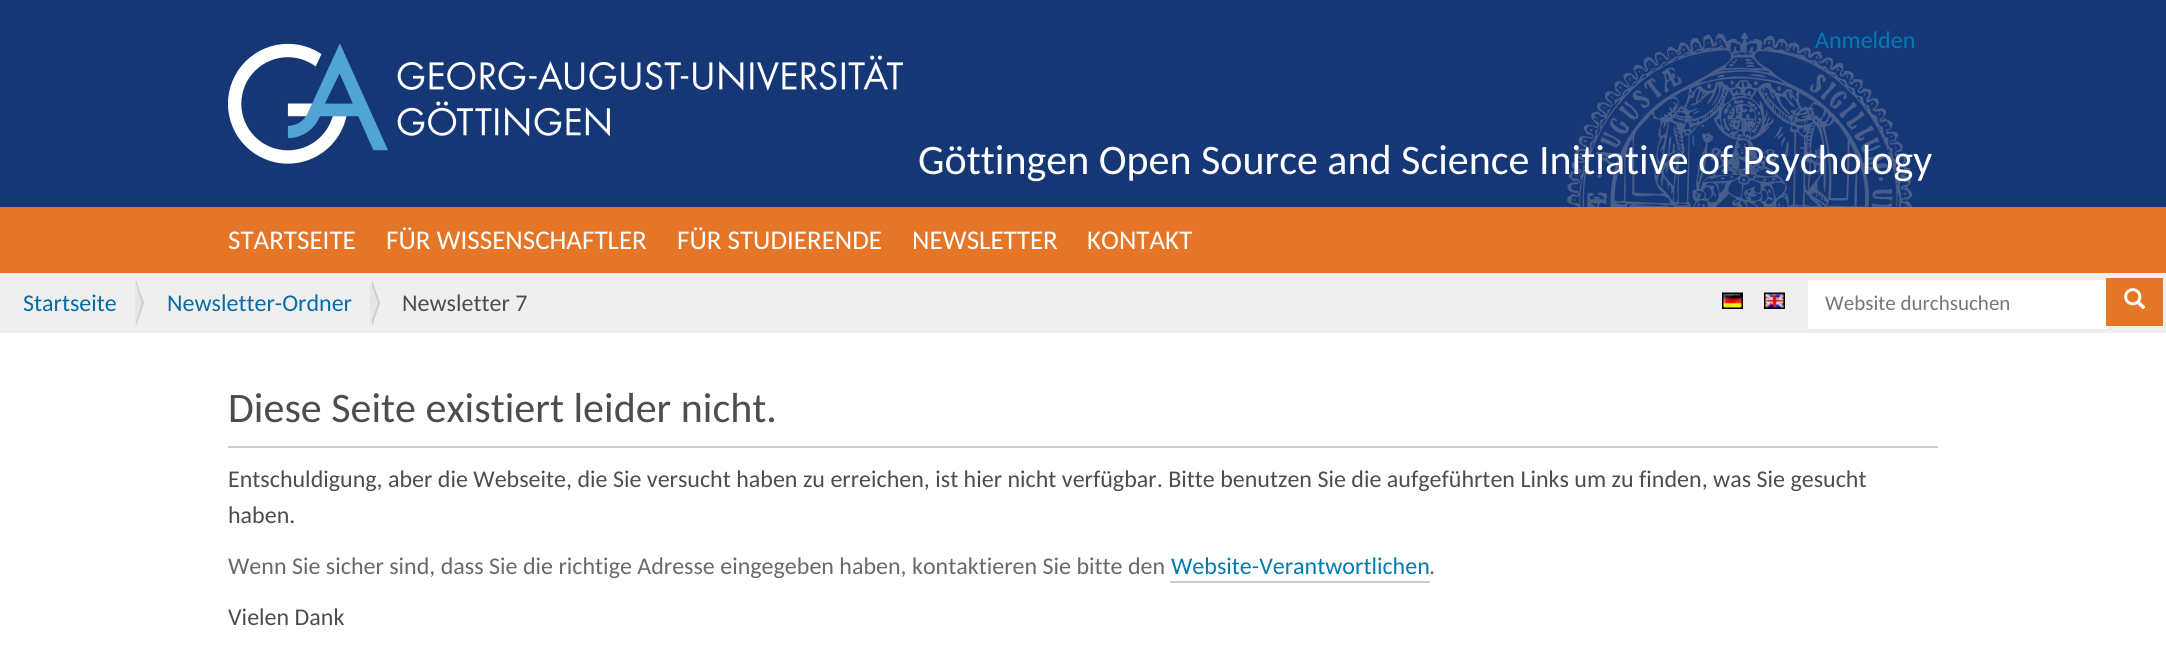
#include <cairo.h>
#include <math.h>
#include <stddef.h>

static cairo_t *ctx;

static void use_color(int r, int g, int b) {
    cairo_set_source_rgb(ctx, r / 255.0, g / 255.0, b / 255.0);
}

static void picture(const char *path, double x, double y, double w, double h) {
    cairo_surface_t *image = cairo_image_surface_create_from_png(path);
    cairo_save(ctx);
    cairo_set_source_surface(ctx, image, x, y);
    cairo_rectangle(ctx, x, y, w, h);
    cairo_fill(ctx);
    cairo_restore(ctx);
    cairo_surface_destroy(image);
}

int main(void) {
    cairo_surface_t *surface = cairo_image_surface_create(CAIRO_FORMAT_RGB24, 2166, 662);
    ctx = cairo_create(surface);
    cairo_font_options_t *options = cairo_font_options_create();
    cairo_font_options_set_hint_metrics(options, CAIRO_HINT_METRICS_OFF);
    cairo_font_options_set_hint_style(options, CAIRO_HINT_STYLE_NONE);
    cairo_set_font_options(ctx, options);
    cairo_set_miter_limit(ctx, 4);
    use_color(255, 255, 255);
    cairo_paint(ctx);
    use_color(22, 55, 118);
    cairo_rectangle(ctx, 0, 0, 2166, 207);
    cairo_fill(ctx);
    picture("img1.png", 1567, 32, 346, 175);
    cairo_select_font_face(ctx, "Carlito", CAIRO_FONT_SLANT_NORMAL, CAIRO_FONT_WEIGHT_NORMAL);
    cairo_set_font_size(ctx, 24);
    use_color(0, 123, 179);
    cairo_move_to(ctx, 1815, 48);
    cairo_show_text(ctx, "Anmelden");
    picture("img2.png", 228, 43, 675, 121);
    cairo_set_font_size(ctx, 42);
    use_color(255, 255, 255);
    cairo_move_to(ctx, 918, 174);
    cairo_show_text(ctx, "Göttingen Open Source and Science Initiative of Psychology");
    use_color(230, 118, 39);
    cairo_rectangle(ctx, 0, 207, 2166, 66);
    cairo_fill(ctx);
    cairo_set_font_size(ctx, 27);
    use_color(255, 255, 255);
    cairo_move_to(ctx, 228, 249);
    cairo_show_text(ctx, "STARTSEITE");
    cairo_move_to(ctx, 386, 249);
    cairo_show_text(ctx, "FÜR WISSENSCHAFTLER");
    cairo_move_to(ctx, 677, 249);
    cairo_show_text(ctx, "FÜR STUDIERENDE");
    cairo_move_to(ctx, 912, 249);
    cairo_show_text(ctx, "NEWSLETTER");
    cairo_move_to(ctx, 1087, 249);
    cairo_show_text(ctx, "KONTAKT");
    use_color(239, 239, 239);
    cairo_rectangle(ctx, 0, 273, 2166, 60);
    cairo_fill(ctx);
    cairo_set_font_size(ctx, 24);
    use_color(8, 108, 163);
    cairo_move_to(ctx, 23, 311);
    cairo_show_text(ctx, "Startseite");
    use_color(204, 204, 204);
    cairo_new_path(ctx);
    cairo_move_to(ctx, 136, 326);
    cairo_line_to(ctx, 136, 280);
    cairo_line_to(ctx, 144, 303);
    cairo_close_path(ctx);
    cairo_fill(ctx);
    use_color(230, 228, 228);
    cairo_new_path(ctx);
    cairo_move_to(ctx, 135, 326);
    cairo_line_to(ctx, 135, 280);
    cairo_line_to(ctx, 142, 303);
    cairo_close_path(ctx);
    cairo_fill(ctx);
    use_color(8, 108, 163);
    cairo_move_to(ctx, 167, 311);
    cairo_show_text(ctx, "Newsletter-Ordner");
    use_color(204, 204, 204);
    cairo_new_path(ctx);
    cairo_move_to(ctx, 372, 326);
    cairo_line_to(ctx, 372, 280);
    cairo_line_to(ctx, 380, 303);
    cairo_close_path(ctx);
    cairo_fill(ctx);
    use_color(230, 228, 228);
    cairo_new_path(ctx);
    cairo_move_to(ctx, 370, 326);
    cairo_line_to(ctx, 370, 280);
    cairo_line_to(ctx, 378, 303);
    cairo_close_path(ctx);
    cairo_fill(ctx);
    use_color(77, 77, 77);
    cairo_move_to(ctx, 402, 311);
    cairo_show_text(ctx, "Newsletter 7");
    picture("img3.png", 1722, 292, 21, 17);
    picture("img4.png", 1764, 292, 21, 17);
    use_color(255, 255, 255);
    cairo_rectangle(ctx, 1808, 280, 300, 49);
    cairo_fill(ctx);
    use_color(236, 236, 236);
    cairo_rectangle(ctx, 1808, 278, 300, 2);
    cairo_fill(ctx);
    cairo_set_font_size(ctx, 21);
    use_color(119, 119, 119);
    cairo_move_to(ctx, 1825, 310);
    cairo_show_text(ctx, "Website durchsuchen");
    use_color(230, 118, 39);
    cairo_rectangle(ctx, 2106, 278, 57, 48);
    cairo_fill(ctx);
    picture("img5.png", 2124, 288, 22, 22);
    use_color(204, 204, 204);
    cairo_rectangle(ctx, 228, 446, 1710, 2);
    cairo_fill(ctx);
    cairo_set_font_size(ctx, 42);
    use_color(77, 77, 77);
    cairo_move_to(ctx, 228, 422);
    cairo_show_text(ctx, "Diese Seite existiert leider nicht.");
    cairo_set_font_size(ctx, 24);
    cairo_move_to(ctx, 228, 487);
    cairo_show_text(ctx, "Entschuldigung, aber die Webseite, die Sie versucht haben zu erreichen, ist hier nicht verfügbar. Bitte benutzen Sie die aufgeführten Links um zu finden, was Sie gesucht");
    cairo_move_to(ctx, 228, 523);
    cairo_show_text(ctx, "haben.");
    use_color(105, 105, 105);
    cairo_move_to(ctx, 228, 574);
    cairo_show_text(ctx, "Wenn Sie sicher sind, dass Sie die richtige Adresse eingegeben haben, kontaktieren Sie bitte den");
    use_color(0, 123, 179);
    cairo_move_to(ctx, 1171, 574);
    cairo_show_text(ctx, "Website-Verantwortlichen");
    use_color(204, 204, 204);
    cairo_rectangle(ctx, 1170, 581, 260, 2);
    cairo_fill(ctx);
    use_color(105, 105, 105);
    cairo_move_to(ctx, 1429, 574);
    cairo_show_text(ctx, ".");
    use_color(77, 77, 77);
    cairo_move_to(ctx, 228, 625);
    cairo_show_text(ctx, "Vielen Dank");
    cairo_surface_write_to_png(surface, "result.png");
    cairo_font_options_destroy(options);
    cairo_destroy(ctx);
    cairo_surface_destroy(surface);
    return 0;
}
